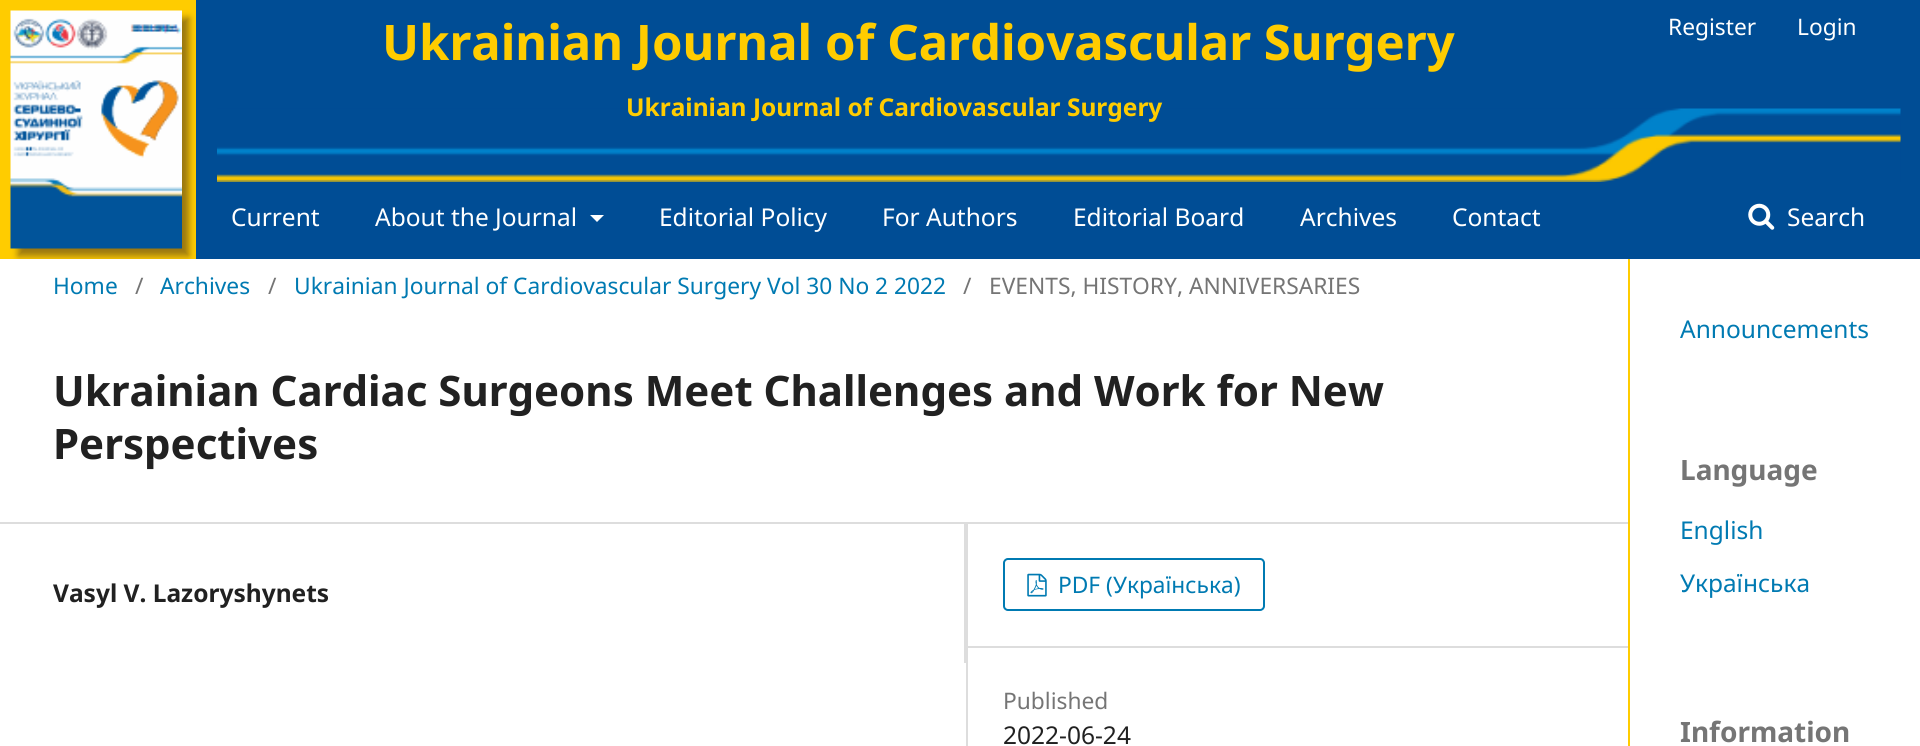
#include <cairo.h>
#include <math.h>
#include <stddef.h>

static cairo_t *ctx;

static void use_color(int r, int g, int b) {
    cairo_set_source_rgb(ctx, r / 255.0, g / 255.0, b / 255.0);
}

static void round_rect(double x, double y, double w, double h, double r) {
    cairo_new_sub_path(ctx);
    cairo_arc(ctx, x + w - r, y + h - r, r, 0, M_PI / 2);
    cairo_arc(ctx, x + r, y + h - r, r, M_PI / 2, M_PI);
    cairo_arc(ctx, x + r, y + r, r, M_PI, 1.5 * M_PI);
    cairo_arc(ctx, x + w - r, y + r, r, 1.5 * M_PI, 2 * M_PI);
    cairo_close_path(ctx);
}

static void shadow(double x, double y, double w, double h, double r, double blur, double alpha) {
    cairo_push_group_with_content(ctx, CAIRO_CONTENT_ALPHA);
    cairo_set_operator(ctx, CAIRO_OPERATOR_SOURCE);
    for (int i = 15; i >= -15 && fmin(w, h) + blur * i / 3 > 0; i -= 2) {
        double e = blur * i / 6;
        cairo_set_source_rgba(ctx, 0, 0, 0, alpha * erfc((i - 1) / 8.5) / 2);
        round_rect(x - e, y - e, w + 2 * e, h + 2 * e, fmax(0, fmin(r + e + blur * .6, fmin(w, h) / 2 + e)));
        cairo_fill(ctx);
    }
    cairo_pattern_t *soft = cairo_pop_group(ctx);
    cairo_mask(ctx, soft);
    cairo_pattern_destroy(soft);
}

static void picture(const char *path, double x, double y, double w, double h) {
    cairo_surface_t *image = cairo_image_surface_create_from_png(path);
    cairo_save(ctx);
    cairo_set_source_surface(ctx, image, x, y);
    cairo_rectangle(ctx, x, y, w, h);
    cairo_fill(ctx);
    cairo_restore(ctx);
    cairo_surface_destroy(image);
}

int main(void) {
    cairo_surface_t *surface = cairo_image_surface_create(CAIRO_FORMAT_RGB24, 1920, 746);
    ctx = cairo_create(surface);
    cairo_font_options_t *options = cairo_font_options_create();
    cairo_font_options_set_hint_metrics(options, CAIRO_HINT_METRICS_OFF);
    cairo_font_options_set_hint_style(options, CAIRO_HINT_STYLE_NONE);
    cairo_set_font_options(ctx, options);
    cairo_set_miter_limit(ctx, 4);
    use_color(255, 204, 0);
    cairo_paint(ctx);
    use_color(153, 119, 17);
    shadow(18, 18, 171, 238, 0, 3.5, 1);
    picture("img1.png", 10, 10, 172, 239);
    use_color(0, 77, 149);
    cairo_rectangle(ctx, 196, 0, 1724, 259);
    cairo_fill(ctx);
    picture("img2.png", 217, 108, 1684, 74);
    cairo_select_font_face(ctx, "Noto Sans", CAIRO_FONT_SLANT_NORMAL, CAIRO_FONT_WEIGHT_BOLD);
    cairo_set_font_size(ctx, 49);
    use_color(255, 204, 0);
    cairo_move_to(ctx, 382, 60);
    cairo_show_text(ctx, "Ukrainian Journal of Cardiovascular Surgery");
    cairo_set_font_size(ctx, 24.5);
    cairo_move_to(ctx, 626, 116);
    cairo_show_text(ctx, "Ukrainian Journal of Cardiovascular Surgery");
    cairo_select_font_face(ctx, "Noto Sans", CAIRO_FONT_SLANT_NORMAL, CAIRO_FONT_WEIGHT_NORMAL);
    cairo_set_font_size(ctx, 22.75);
    use_color(255, 255, 255);
    cairo_move_to(ctx, 1668, 35);
    cairo_show_text(ctx, "Register");
    cairo_move_to(ctx, 1797, 35);
    cairo_show_text(ctx, "Login");
    cairo_set_font_size(ctx, 24.5);
    cairo_move_to(ctx, 231, 226);
    cairo_show_text(ctx, "Current");
    cairo_move_to(ctx, 375, 226);
    cairo_show_text(ctx, "About the Journal");
    cairo_new_path(ctx);
    cairo_move_to(ctx, 590, 215);
    cairo_line_to(ctx, 604, 215);
    cairo_line_to(ctx, 597, 222);
    cairo_close_path(ctx);
    cairo_fill(ctx);
    cairo_move_to(ctx, 659, 226);
    cairo_show_text(ctx, "Editorial Policy");
    cairo_move_to(ctx, 882, 226);
    cairo_show_text(ctx, "For Authors");
    cairo_move_to(ctx, 1073, 226);
    cairo_show_text(ctx, "Editorial Board");
    cairo_move_to(ctx, 1300, 226);
    cairo_show_text(ctx, "Archives");
    cairo_move_to(ctx, 1452, 226);
    cairo_show_text(ctx, "Contact");
    picture("img3.png", 1748, 203, 27, 27);
    cairo_move_to(ctx, 1787, 226);
    cairo_show_text(ctx, "Search");
    cairo_rectangle(ctx, 0, 259, 1920, 487);
    cairo_fill(ctx);
    cairo_set_font_size(ctx, 22.75);
    use_color(0, 122, 178);
    cairo_move_to(ctx, 53, 294);
    cairo_show_text(ctx, "Home");
    use_color(117, 117, 117);
    cairo_move_to(ctx, 135, 294);
    cairo_show_text(ctx, "/");
    use_color(0, 122, 178);
    cairo_move_to(ctx, 160, 294);
    cairo_show_text(ctx, "Archives");
    use_color(117, 117, 117);
    cairo_move_to(ctx, 268, 294);
    cairo_show_text(ctx, "/");
    use_color(0, 122, 178);
    cairo_move_to(ctx, 294, 294);
    cairo_show_text(ctx, "Ukrainian Journal of Cardiovascular Surgery Vol 30 No 2 2022");
    use_color(117, 117, 117);
    cairo_move_to(ctx, 963, 294);
    cairo_show_text(ctx, "/");
    cairo_move_to(ctx, 989, 294);
    cairo_show_text(ctx, "EVENTS, HISTORY, ANNIVERSARIES");
    cairo_select_font_face(ctx, "Noto Sans", CAIRO_FONT_SLANT_NORMAL, CAIRO_FONT_WEIGHT_BOLD);
    cairo_set_font_size(ctx, 42);
    use_color(33, 33, 33);
    cairo_move_to(ctx, 53, 406);
    cairo_show_text(ctx, "Ukrainian Cardiac Surgeons Meet Challenges and Work for New");
    cairo_move_to(ctx, 53, 459);
    cairo_show_text(ctx, "Perspectives");
    use_color(221, 221, 221);
    cairo_rectangle(ctx, 0, 522, 1628, 2);
    cairo_fill(ctx);
    cairo_rectangle(ctx, 964, 523, 2, 140);
    cairo_fill(ctx);
    cairo_set_font_size(ctx, 24.5);
    use_color(33, 33, 33);
    cairo_move_to(ctx, 53, 602);
    cairo_show_text(ctx, "Vasyl V. Lazoryshynets");
    use_color(221, 221, 221);
    cairo_rectangle(ctx, 966, 523, 2, 223);
    cairo_fill(ctx);
    cairo_rectangle(ctx, 968, 646, 661, 2);
    cairo_fill(ctx);
    round_rect(1004, 559, 260, 51, 4);
    use_color(0, 122, 178);
    cairo_stroke(ctx);
    picture("img4.png", 1027, 573, 20, 24);
    cairo_select_font_face(ctx, "Noto Sans", CAIRO_FONT_SLANT_NORMAL, CAIRO_FONT_WEIGHT_NORMAL);
    cairo_set_font_size(ctx, 22.75);
    cairo_move_to(ctx, 1058, 593);
    cairo_show_text(ctx, "PDF (Українська)");
    use_color(117, 117, 117);
    cairo_move_to(ctx, 1003, 709);
    cairo_show_text(ctx, "Published");
    cairo_set_font_size(ctx, 24.5);
    use_color(33, 33, 33);
    cairo_move_to(ctx, 1003, 744);
    cairo_show_text(ctx, "2022-06-24");
    use_color(255, 204, 0);
    cairo_rectangle(ctx, 1628, 259, 2, 487);
    cairo_fill(ctx);
    use_color(0, 122, 178);
    cairo_move_to(ctx, 1680, 338);
    cairo_show_text(ctx, "Announcements");
    cairo_select_font_face(ctx, "Noto Sans", CAIRO_FONT_SLANT_NORMAL, CAIRO_FONT_WEIGHT_BOLD);
    cairo_set_font_size(ctx, 28);
    use_color(117, 117, 117);
    cairo_move_to(ctx, 1680, 480);
    cairo_show_text(ctx, "Language");
    cairo_select_font_face(ctx, "Noto Sans", CAIRO_FONT_SLANT_NORMAL, CAIRO_FONT_WEIGHT_NORMAL);
    cairo_set_font_size(ctx, 24.5);
    use_color(0, 122, 178);
    cairo_move_to(ctx, 1680, 539);
    cairo_show_text(ctx, "English");
    cairo_move_to(ctx, 1680, 592);
    cairo_show_text(ctx, "Українська");
    cairo_select_font_face(ctx, "Noto Sans", CAIRO_FONT_SLANT_NORMAL, CAIRO_FONT_WEIGHT_BOLD);
    cairo_set_font_size(ctx, 28);
    use_color(117, 117, 117);
    cairo_move_to(ctx, 1680, 742);
    cairo_show_text(ctx, "Information");
    cairo_surface_write_to_png(surface, "result.png");
    cairo_font_options_destroy(options);
    cairo_destroy(ctx);
    cairo_surface_destroy(surface);
    return 0;
}
